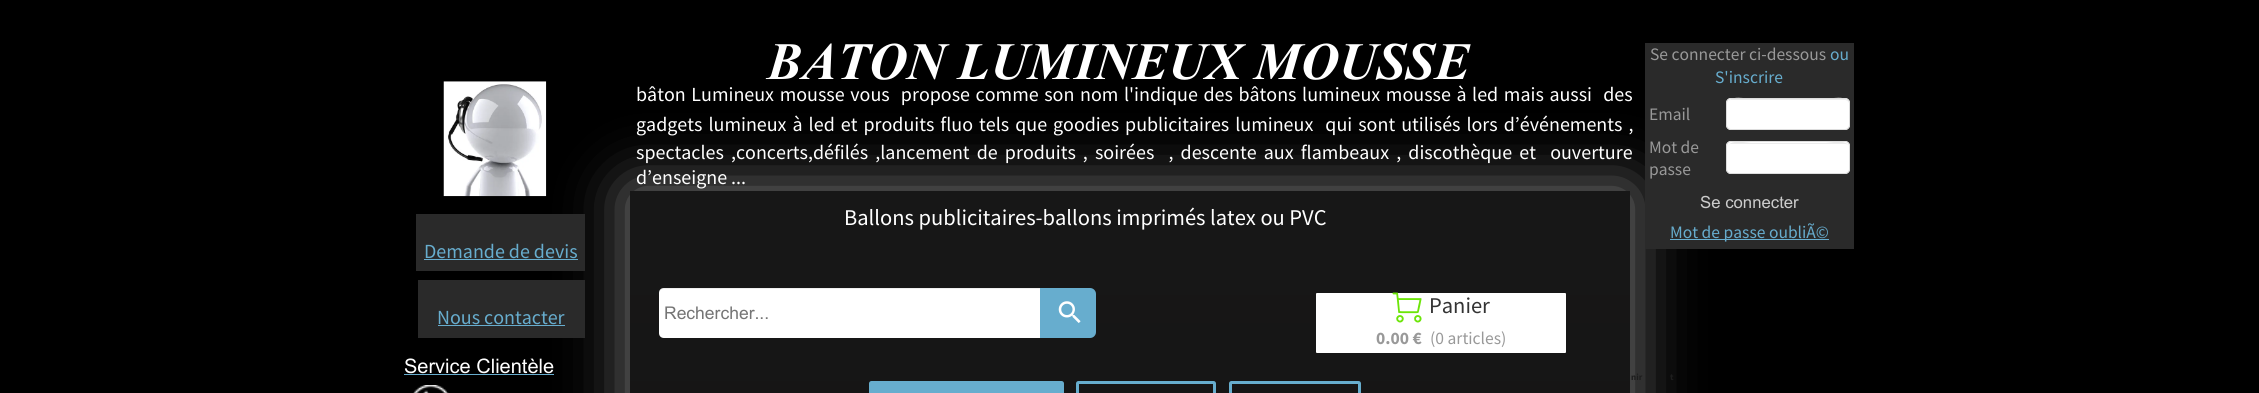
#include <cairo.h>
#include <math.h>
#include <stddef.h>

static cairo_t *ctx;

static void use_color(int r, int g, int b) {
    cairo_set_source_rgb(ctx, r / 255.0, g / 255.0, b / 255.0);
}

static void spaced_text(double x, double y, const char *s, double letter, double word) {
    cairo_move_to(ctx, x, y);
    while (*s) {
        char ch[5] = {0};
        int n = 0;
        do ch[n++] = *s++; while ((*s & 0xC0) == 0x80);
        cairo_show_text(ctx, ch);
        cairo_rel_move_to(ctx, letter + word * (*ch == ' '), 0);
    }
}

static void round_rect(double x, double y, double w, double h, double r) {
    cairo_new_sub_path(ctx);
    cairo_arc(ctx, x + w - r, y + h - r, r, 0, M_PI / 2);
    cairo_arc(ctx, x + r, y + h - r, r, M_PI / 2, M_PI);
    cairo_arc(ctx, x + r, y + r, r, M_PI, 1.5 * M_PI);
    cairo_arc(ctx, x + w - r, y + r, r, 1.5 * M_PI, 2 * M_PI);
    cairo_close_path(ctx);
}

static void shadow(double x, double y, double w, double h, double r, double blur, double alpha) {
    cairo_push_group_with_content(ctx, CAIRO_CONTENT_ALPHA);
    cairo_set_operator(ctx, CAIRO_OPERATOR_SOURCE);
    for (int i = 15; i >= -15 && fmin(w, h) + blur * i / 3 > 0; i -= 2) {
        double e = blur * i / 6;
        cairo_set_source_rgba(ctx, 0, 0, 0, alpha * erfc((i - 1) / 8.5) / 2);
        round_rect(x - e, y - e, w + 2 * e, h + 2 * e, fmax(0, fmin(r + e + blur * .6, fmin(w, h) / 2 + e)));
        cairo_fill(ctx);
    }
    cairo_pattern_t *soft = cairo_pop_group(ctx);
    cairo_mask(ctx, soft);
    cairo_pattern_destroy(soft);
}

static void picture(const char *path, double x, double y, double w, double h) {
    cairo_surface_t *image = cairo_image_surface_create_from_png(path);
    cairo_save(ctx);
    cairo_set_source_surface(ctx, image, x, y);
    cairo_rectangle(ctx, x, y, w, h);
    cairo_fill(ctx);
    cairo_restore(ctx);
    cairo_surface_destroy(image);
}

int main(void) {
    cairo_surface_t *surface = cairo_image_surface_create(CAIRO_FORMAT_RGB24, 2259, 393);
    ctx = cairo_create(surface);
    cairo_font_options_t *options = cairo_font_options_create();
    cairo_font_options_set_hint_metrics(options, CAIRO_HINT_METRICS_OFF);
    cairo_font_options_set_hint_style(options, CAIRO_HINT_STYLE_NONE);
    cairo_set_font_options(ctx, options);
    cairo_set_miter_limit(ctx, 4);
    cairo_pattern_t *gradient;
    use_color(0, 0, 0);
    cairo_paint(ctx);
    cairo_save(ctx);
    cairo_set_fill_rule(ctx, CAIRO_FILL_RULE_EVEN_ODD);
    cairo_new_path(ctx);
    cairo_move_to(ctx, 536, 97);
    cairo_line_to(ctx, 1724, 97);
    cairo_line_to(ctx, 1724, 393);
    cairo_line_to(ctx, 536, 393);
    cairo_close_path(ctx);
    cairo_move_to(ctx, 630, 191);
    cairo_line_to(ctx, 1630, 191);
    cairo_line_to(ctx, 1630, 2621);
    cairo_line_to(ctx, 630, 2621);
    cairo_close_path(ctx);
    cairo_clip(ctx);
    use_color(130, 130, 130);
    shadow(630, 191, 1000, 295, 0, 31, 1);
    cairo_restore(ctx);
    picture("img1.png", 443, 81, 104, 116);
    cairo_select_font_face(ctx, "Times New Roman", CAIRO_FONT_SLANT_ITALIC, CAIRO_FONT_WEIGHT_BOLD);
    cairo_set_font_size(ctx, 52.5);
    use_color(255, 255, 255);
    cairo_move_to(ctx, 767, 79);
    cairo_show_text(ctx, "BATON LUMINEUX MOUSSE");
    use_color(42, 42, 42);
    cairo_rectangle(ctx, 1645, 43, 209, 206);
    cairo_fill(ctx);
    cairo_select_font_face(ctx, "Source Sans Pro", CAIRO_FONT_SLANT_NORMAL, CAIRO_FONT_WEIGHT_NORMAL);
    cairo_set_font_size(ctx, 17.5);
    use_color(153, 153, 153);
    cairo_move_to(ctx, 1650, 60);
    cairo_show_text(ctx, "Se connecter ci-dessous");
    use_color(103, 173, 206);
    cairo_move_to(ctx, 1830, 60);
    cairo_show_text(ctx, "ou");
    cairo_move_to(ctx, 1715, 83);
    cairo_show_text(ctx, "S'inscrire");
    use_color(153, 153, 153);
    cairo_move_to(ctx, 1649, 120);
    cairo_show_text(ctx, "Email");
    use_color(255, 255, 255);
    round_rect(1726, 98, 124, 32, 5);
    cairo_fill(ctx);
    use_color(236, 236, 236);
    cairo_new_path(ctx);
    cairo_move_to(ctx, 1731, 100);
    cairo_line_to(ctx, 1845, 100);
    cairo_curve_to(ctx, 1847, 100, 1849, 102, 1849, 104);
    cairo_curve_to(ctx, 1849, 94, 1829, 99, 1826, 99);
    cairo_line_to(ctx, 1751, 99);
    cairo_curve_to(ctx, 1748, 99, 1728, 94, 1728, 104);
    cairo_curve_to(ctx, 1728, 102, 1729, 100, 1731, 100);
    cairo_close_path(ctx);
    cairo_fill(ctx);
    round_rect(1726.5, 98.5, 123, 31, 4.5);
    use_color(221, 221, 221);
    cairo_set_line_width(ctx, 1);
    cairo_stroke(ctx);
    use_color(153, 153, 153);
    cairo_move_to(ctx, 1649, 153);
    cairo_show_text(ctx, "Mot de");
    cairo_move_to(ctx, 1649, 175);
    cairo_show_text(ctx, "passe");
    use_color(255, 255, 255);
    round_rect(1726, 141, 124, 33, 5);
    cairo_fill(ctx);
    use_color(236, 236, 236);
    cairo_new_path(ctx);
    cairo_move_to(ctx, 1731, 144);
    cairo_line_to(ctx, 1845, 144);
    cairo_curve_to(ctx, 1847, 144, 1849, 145, 1849, 148);
    cairo_curve_to(ctx, 1849, 138, 1829, 143, 1826, 143);
    cairo_line_to(ctx, 1751, 143);
    cairo_curve_to(ctx, 1748, 143, 1728, 138, 1728, 148);
    cairo_curve_to(ctx, 1728, 145, 1729, 144, 1731, 144);
    cairo_close_path(ctx);
    cairo_fill(ctx);
    round_rect(1726.5, 141.5, 123, 32, 4.5);
    use_color(221, 221, 221);
    cairo_stroke(ctx);
    cairo_select_font_face(ctx, "Arial", CAIRO_FONT_SLANT_NORMAL, CAIRO_FONT_WEIGHT_NORMAL);
    cairo_set_font_size(ctx, 16.75);
    use_color(204, 204, 204);
    cairo_move_to(ctx, 1700, 208);
    cairo_show_text(ctx, "Se connecter");
    use_color(103, 173, 206);
    cairo_rectangle(ctx, 1670, 239, 159, 1);
    cairo_fill(ctx);
    cairo_select_font_face(ctx, "Source Sans Pro", CAIRO_FONT_SLANT_NORMAL, CAIRO_FONT_WEIGHT_NORMAL);
    cairo_set_font_size(ctx, 17.5);
    cairo_move_to(ctx, 1670, 238);
    cairo_show_text(ctx, "Mot de passe oubliÃ©");
    cairo_set_font_size(ctx, 20);
    use_color(255, 255, 255);
    spaced_text(636, 101, "bâton Lumineux mousse vous  propose comme son nom l'indique des bâtons lumineux mousse à led mais aussi  des", 0, 1.6);
    spaced_text(636, 131, "gadgets lumineux à led et produits fluo tels que", 0, 2);
    spaced_text(1053, 131, "goodies publicitaires lumineux  qui sont utilisés lors d’événements ,", 0, 2);
    spaced_text(636, 159, "spectacles ,concerts,défilés ,lancement de produits , soirées  , descente aux flambeaux , discothèque et  ouverture", 0, 3.1);
    cairo_move_to(ctx, 636, 184);
    cairo_show_text(ctx, "d’enseigne ...");
    gradient = cairo_pattern_create_linear(1130, 191, 1130, 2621);
    cairo_pattern_add_color_stop_rgba(gradient, 0.01, 0.102, 0.102, 0.102, 0.9);
    cairo_pattern_add_color_stop_rgba(gradient, 0.76, 0.024, 0, 0, 1);
    cairo_pattern_add_color_stop_rgba(gradient, 0.95, 0.102, 0.102, 0.102, 0.9);
    cairo_pattern_add_color_stop_rgba(gradient, 1, 0.102, 0.102, 0.102, 0.9);
    cairo_set_source(ctx, gradient);
    cairo_pattern_destroy(gradient);
    cairo_rectangle(ctx, 630, 191, 1000, 202);
    cairo_fill(ctx);
    cairo_set_font_size(ctx, 22.5);
    use_color(255, 255, 255);
    cairo_move_to(ctx, 844, 225);
    cairo_show_text(ctx, "Ballons publicitaires-ballons imprimés latex ou PVC");
    use_color(42, 42, 42);
    cairo_rectangle(ctx, 416, 214, 169, 57);
    cairo_fill(ctx);
    cairo_set_font_size(ctx, 20);
    use_color(103, 173, 206);
    cairo_move_to(ctx, 424, 258);
    cairo_show_text(ctx, "Demande de devis");
    cairo_rectangle(ctx, 424, 259, 154, 1);
    cairo_fill(ctx);
    use_color(42, 42, 42);
    cairo_rectangle(ctx, 418, 280, 167, 58);
    cairo_fill(ctx);
    use_color(103, 173, 206);
    cairo_move_to(ctx, 437, 324);
    cairo_show_text(ctx, "Nous contacter");
    cairo_rectangle(ctx, 438, 325, 127, 1);
    cairo_fill(ctx);
    use_color(255, 255, 255);
    cairo_new_path(ctx);
    cairo_move_to(ctx, 664, 288);
    cairo_line_to(ctx, 1040, 288);
    cairo_line_to(ctx, 1040, 338);
    cairo_line_to(ctx, 664, 338);
    cairo_curve_to(ctx, 661, 338, 659, 336, 659, 333);
    cairo_line_to(ctx, 659, 293);
    cairo_curve_to(ctx, 659, 290, 661, 288, 664, 288);
    cairo_close_path(ctx);
    cairo_fill(ctx);
    cairo_set_source_rgba(ctx, 0, 0, 0, 0.07);
    cairo_new_path(ctx);
    cairo_move_to(ctx, 664, 289);
    cairo_line_to(ctx, 1040, 289);
    cairo_line_to(ctx, 1040, 288);
    cairo_line_to(ctx, 664, 288);
    cairo_curve_to(ctx, 661, 288, 659, 291, 659, 294);
    cairo_curve_to(ctx, 659, 291, 661, 289, 664, 289);
    cairo_close_path(ctx);
    cairo_fill(ctx);
    cairo_select_font_face(ctx, "Arial", CAIRO_FONT_SLANT_NORMAL, CAIRO_FONT_WEIGHT_NORMAL);
    cairo_set_font_size(ctx, 17.5);
    use_color(117, 117, 117);
    cairo_move_to(ctx, 664, 319);
    cairo_show_text(ctx, "Rechercher...");
    use_color(103, 173, 206);
    cairo_new_path(ctx);
    cairo_move_to(ctx, 1041.5, 289.5);
    cairo_line_to(ctx, 1090, 289.5);
    cairo_curve_to(ctx, 1092.5, 289.5, 1094.5, 291.5, 1094.5, 294);
    cairo_line_to(ctx, 1094.5, 332);
    cairo_curve_to(ctx, 1094.5, 334.5, 1092.5, 336.5, 1090, 336.5);
    cairo_line_to(ctx, 1041.5, 336.5);
    cairo_close_path(ctx);
    cairo_fill_preserve(ctx);
    cairo_set_line_width(ctx, 3);
    cairo_stroke(ctx);
    picture("img2.png", 1058, 301, 23, 22);
    use_color(255, 255, 255);
    round_rect(1316, 293, 250, 60, 1);
    cairo_fill(ctx);
    picture("img3.png", 1392, 292, 30, 31);
    cairo_select_font_face(ctx, "Source Sans Pro", CAIRO_FONT_SLANT_NORMAL, CAIRO_FONT_WEIGHT_NORMAL);
    cairo_set_font_size(ctx, 22.5);
    use_color(51, 51, 51);
    cairo_move_to(ctx, 1429, 313);
    cairo_show_text(ctx, "Panier");
    cairo_select_font_face(ctx, "Source Sans Pro", CAIRO_FONT_SLANT_NORMAL, CAIRO_FONT_WEIGHT_BOLD);
    cairo_set_font_size(ctx, 17.5);
    use_color(153, 153, 153);
    cairo_move_to(ctx, 1376, 344);
    cairo_show_text(ctx, "0.00 €");
    cairo_select_font_face(ctx, "Source Sans Pro", CAIRO_FONT_SLANT_NORMAL, CAIRO_FONT_WEIGHT_NORMAL);
    cairo_move_to(ctx, 1430, 344);
    cairo_show_text(ctx, "(0 articles)");
    use_color(103, 173, 206);
    round_rect(870.5, 382.5, 192, 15, 1);
    cairo_fill_preserve(ctx);
    cairo_stroke(ctx);
    round_rect(1077.5, 382.5, 137, 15, 1);
    cairo_stroke(ctx);
    round_rect(1230.5, 382.5, 129, 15, 1);
    cairo_stroke(ctx);
    cairo_select_font_face(ctx, "Arial", CAIRO_FONT_SLANT_NORMAL, CAIRO_FONT_WEIGHT_NORMAL);
    cairo_set_font_size(ctx, 20);
    use_color(255, 255, 255);
    cairo_move_to(ctx, 404, 373);
    cairo_show_text(ctx, "Service Clientèle");
    use_color(103, 173, 206);
    cairo_rectangle(ctx, 404, 374, 150, 1);
    cairo_fill(ctx);
    cairo_select_font_face(ctx, "Source Sans Pro", CAIRO_FONT_SLANT_NORMAL, CAIRO_FONT_WEIGHT_BOLD);
    cairo_set_font_size(ctx, 9);
    use_color(29, 29, 29);
    cairo_move_to(ctx, 1631, 380);
    cairo_show_text(ctx, "nir");
    cairo_move_to(ctx, 1670, 380);
    cairo_show_text(ctx, "t");
    picture("img4.png", 413, 385, 36, 8);
    cairo_surface_write_to_png(surface, "result.png");
    cairo_font_options_destroy(options);
    cairo_destroy(ctx);
    cairo_surface_destroy(surface);
    return 0;
}
